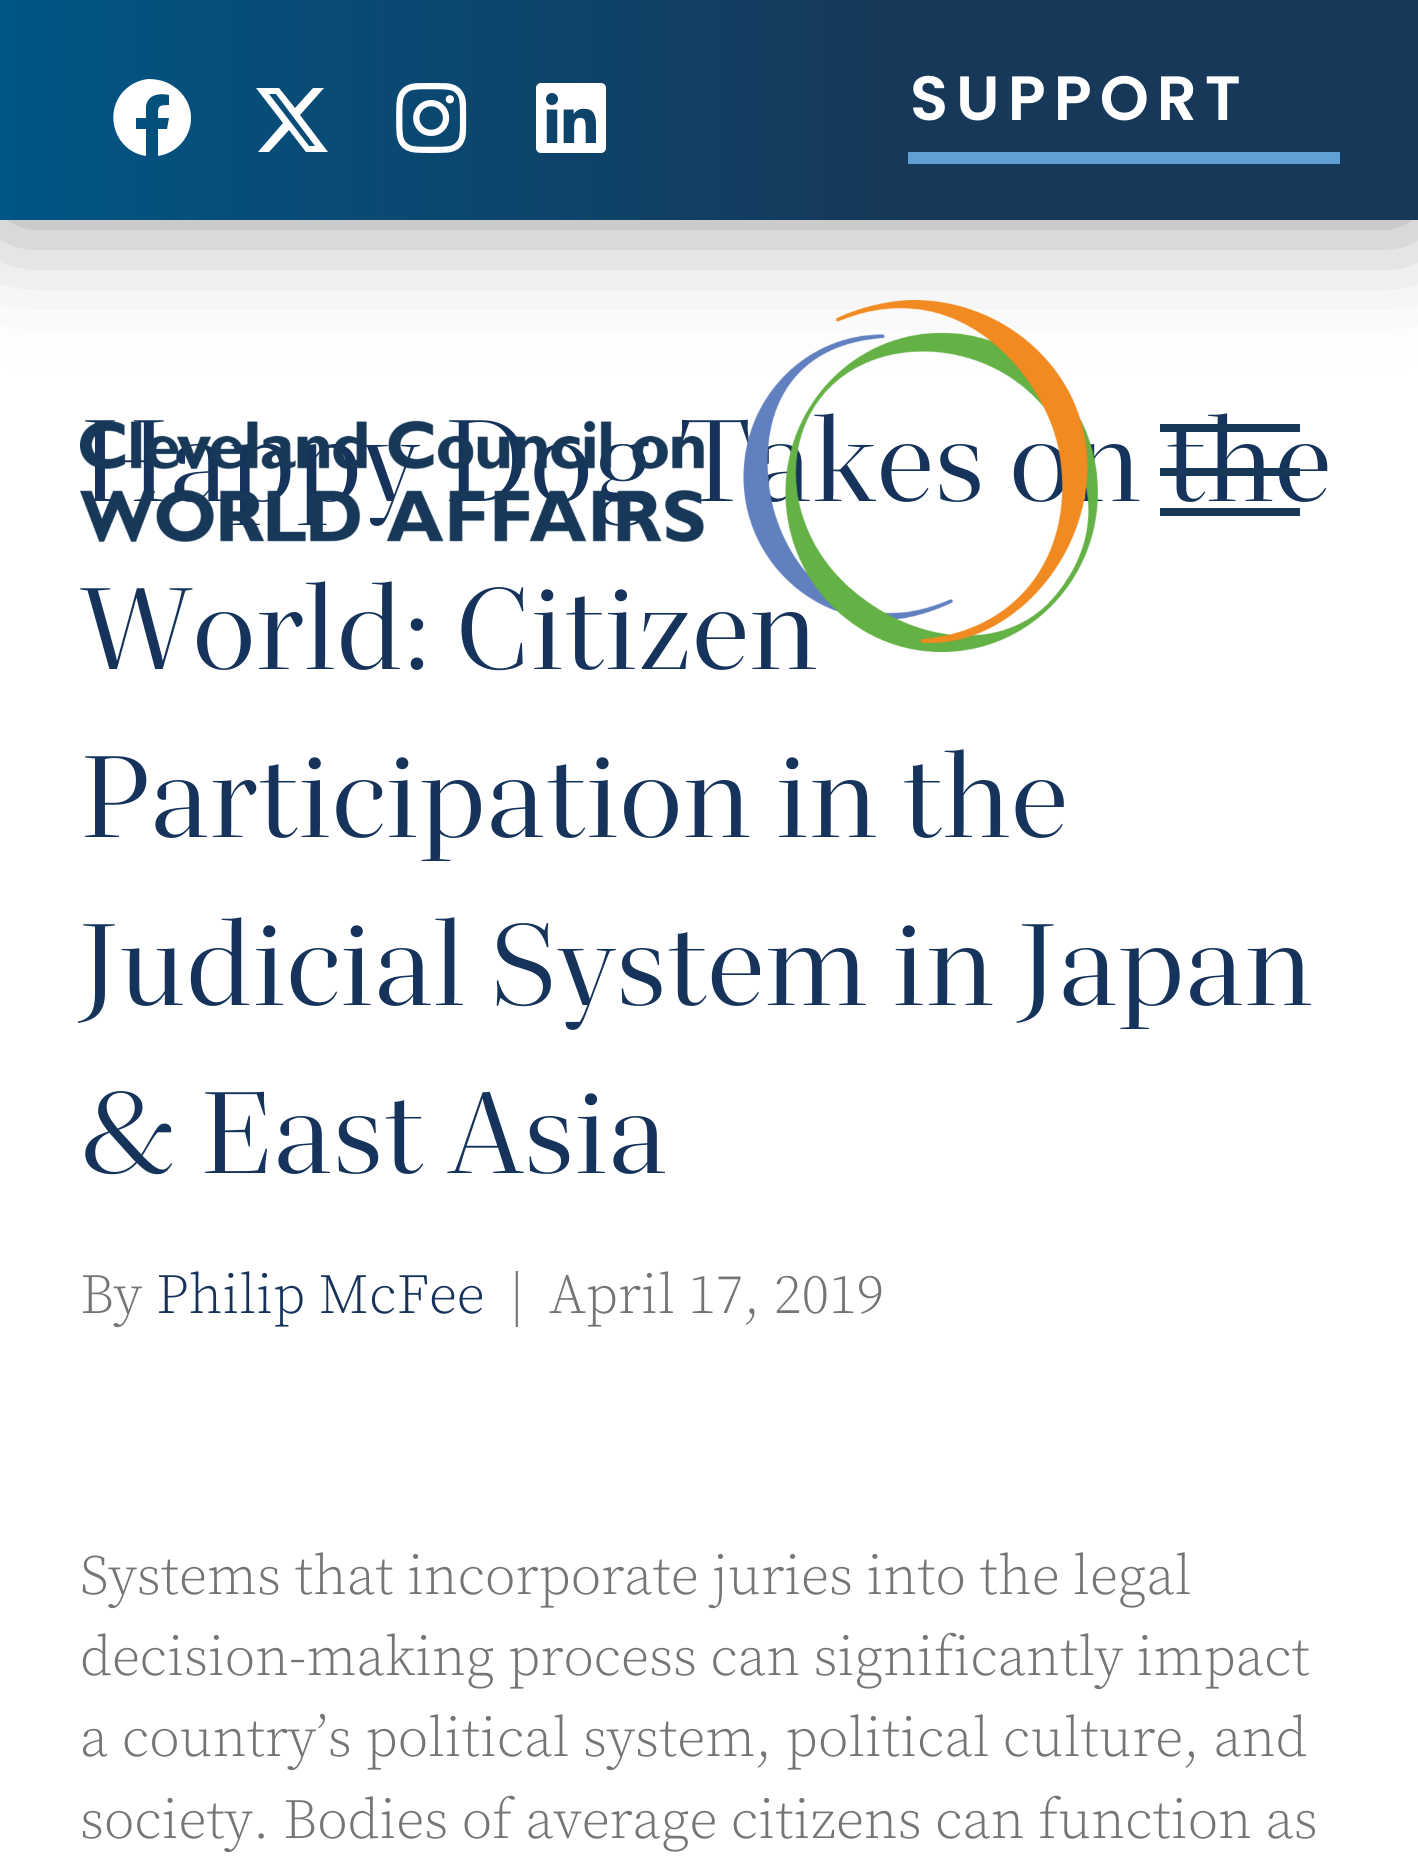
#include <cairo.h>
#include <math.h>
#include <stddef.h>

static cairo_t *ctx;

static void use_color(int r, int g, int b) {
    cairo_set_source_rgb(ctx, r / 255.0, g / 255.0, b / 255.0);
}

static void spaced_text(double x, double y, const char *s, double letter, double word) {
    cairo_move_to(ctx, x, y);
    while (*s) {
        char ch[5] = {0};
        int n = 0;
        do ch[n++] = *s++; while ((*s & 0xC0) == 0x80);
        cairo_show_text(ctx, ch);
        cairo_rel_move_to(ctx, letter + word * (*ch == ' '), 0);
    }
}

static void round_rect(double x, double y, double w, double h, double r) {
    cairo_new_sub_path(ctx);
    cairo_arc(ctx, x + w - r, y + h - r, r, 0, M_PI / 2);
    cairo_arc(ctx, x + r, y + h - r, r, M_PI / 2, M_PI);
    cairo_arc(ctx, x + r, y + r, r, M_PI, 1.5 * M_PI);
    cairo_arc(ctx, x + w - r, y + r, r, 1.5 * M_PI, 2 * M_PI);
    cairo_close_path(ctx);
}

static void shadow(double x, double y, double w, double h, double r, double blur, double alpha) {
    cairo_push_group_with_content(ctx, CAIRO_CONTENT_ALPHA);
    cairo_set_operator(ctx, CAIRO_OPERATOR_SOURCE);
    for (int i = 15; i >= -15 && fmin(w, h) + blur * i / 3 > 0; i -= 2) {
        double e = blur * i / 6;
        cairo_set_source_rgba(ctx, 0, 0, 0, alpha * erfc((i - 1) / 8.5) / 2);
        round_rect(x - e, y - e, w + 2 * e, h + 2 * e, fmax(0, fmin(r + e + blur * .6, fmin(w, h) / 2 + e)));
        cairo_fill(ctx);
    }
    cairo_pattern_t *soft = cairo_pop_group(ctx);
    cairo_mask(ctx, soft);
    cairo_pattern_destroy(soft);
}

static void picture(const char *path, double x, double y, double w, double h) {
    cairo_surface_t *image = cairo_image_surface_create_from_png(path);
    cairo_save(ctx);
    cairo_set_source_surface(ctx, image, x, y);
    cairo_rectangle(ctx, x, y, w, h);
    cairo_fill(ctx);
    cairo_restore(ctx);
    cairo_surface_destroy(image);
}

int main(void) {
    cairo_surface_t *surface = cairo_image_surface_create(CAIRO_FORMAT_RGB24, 1418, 1872);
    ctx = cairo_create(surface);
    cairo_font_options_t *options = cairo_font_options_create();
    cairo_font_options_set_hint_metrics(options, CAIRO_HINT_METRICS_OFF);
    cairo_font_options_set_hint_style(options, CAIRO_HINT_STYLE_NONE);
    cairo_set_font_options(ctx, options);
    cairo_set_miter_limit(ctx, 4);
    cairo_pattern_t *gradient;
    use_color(255, 255, 255);
    cairo_paint(ctx);
    use_color(0, 0, 0);
    shadow(0, 0, 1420, 220, 0, 60, 0.41);
    gradient = cairo_pattern_create_linear(0, 110, 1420, 110);
    cairo_pattern_add_color_stop_rgba(gradient, 0, 0, 0.337, 0.525, 1);
    cairo_pattern_add_color_stop_rgba(gradient, 0.64, 0.09, 0.22, 0.345, 1);
    cairo_set_source(ctx, gradient);
    cairo_pattern_destroy(gradient);
    cairo_rectangle(ctx, 0, 0, 1418, 220);
    cairo_fill(ctx);
    use_color(255, 255, 255);
    cairo_new_path(ctx);
    cairo_move_to(ctx, 191, 118);
    cairo_curve_to(ctx, 191, 137, 177, 153, 158, 156);
    cairo_line_to(ctx, 158, 129);
    cairo_line_to(ctx, 167, 129);
    cairo_line_to(ctx, 169, 118);
    cairo_line_to(ctx, 158, 118);
    cairo_curve_to(ctx, 158, 107, 157, 105, 169, 105);
    cairo_line_to(ctx, 169, 95);
    cairo_curve_to(ctx, 160, 93, 148, 94, 146, 106);
    cairo_line_to(ctx, 146, 118);
    cairo_line_to(ctx, 136, 118);
    cairo_line_to(ctx, 136, 129);
    cairo_line_to(ctx, 146, 129);
    cairo_line_to(ctx, 146, 156);
    cairo_curve_to(ctx, 113, 151, 102, 109, 127, 88);
    cairo_curve_to(ctx, 133, 83, 140, 80, 148, 79);
    cairo_curve_to(ctx, 157, 79, 166, 81, 173, 86);
    cairo_curve_to(ctx, 184, 93, 191, 105, 191, 118);
    cairo_close_path(ctx);
    cairo_fill(ctx);
    cairo_new_path(ctx);
    cairo_move_to(ctx, 313, 88);
    cairo_line_to(ctx, 324, 88);
    cairo_line_to(ctx, 300, 115);
    cairo_line_to(ctx, 328, 152);
    cairo_line_to(ctx, 306, 152);
    cairo_line_to(ctx, 289, 130);
    cairo_line_to(ctx, 269, 152);
    cairo_line_to(ctx, 258, 152);
    cairo_line_to(ctx, 283, 123);
    cairo_line_to(ctx, 256, 88);
    cairo_line_to(ctx, 279, 88);
    cairo_line_to(ctx, 295, 108);
    cairo_close_path(ctx);
    cairo_move_to(ctx, 309, 146);
    cairo_line_to(ctx, 315, 146);
    cairo_line_to(ctx, 276, 94);
    cairo_line_to(ctx, 269, 94);
    cairo_close_path(ctx);
    cairo_fill(ctx);
    picture("img1.png", 396, 83, 71, 70);
    picture("img2.png", 536, 83, 70, 70);
    use_color(96, 160, 212);
    cairo_rectangle(ctx, 908, 152, 432, 12);
    cairo_fill(ctx);
    cairo_select_font_face(ctx, "Poppins SemiBold", CAIRO_FONT_SLANT_NORMAL, CAIRO_FONT_WEIGHT_NORMAL);
    cairo_set_font_size(ctx, 62.5);
    use_color(255, 255, 255);
    spaced_text(910, 120, "SUPPORT", 8, 0);
    cairo_select_font_face(ctx, "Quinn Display", CAIRO_FONT_SLANT_NORMAL, CAIRO_FONT_WEIGHT_NORMAL);
    cairo_set_font_size(ctx, 120);
    use_color(22, 52, 91);
    cairo_move_to(ctx, 80, 501);
    cairo_show_text(ctx, "Happy Dog Takes on the");
    cairo_move_to(ctx, 80, 669);
    cairo_show_text(ctx, "World: Citizen");
    picture("img3.png", 80, 300, 1018, 352);
    use_color(23, 56, 88);
    cairo_rectangle(ctx, 1160, 468, 140, 8);
    cairo_fill(ctx);
    cairo_rectangle(ctx, 1160, 424, 140, 8);
    cairo_fill(ctx);
    cairo_rectangle(ctx, 1160, 508, 140, 8);
    cairo_fill(ctx);
    use_color(22, 52, 91);
    cairo_move_to(ctx, 80, 837);
    cairo_show_text(ctx, "Participation in the");
    cairo_move_to(ctx, 80, 1005);
    cairo_show_text(ctx, "Judicial System in Japan");
    cairo_move_to(ctx, 80, 1173);
    cairo_show_text(ctx, "& East Asia");
    cairo_select_font_face(ctx, "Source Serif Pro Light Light", CAIRO_FONT_SLANT_NORMAL, CAIRO_FONT_WEIGHT_NORMAL);
    cairo_set_font_size(ctx, 56);
    use_color(117, 117, 117);
    cairo_move_to(ctx, 80, 1313);
    cairo_show_text(ctx, "By");
    use_color(22, 52, 91);
    cairo_move_to(ctx, 156, 1313);
    cairo_show_text(ctx, "Philip McFee");
    use_color(117, 117, 117);
    cairo_move_to(ctx, 510, 1313);
    cairo_show_text(ctx, "|");
    cairo_move_to(ctx, 549, 1313);
    cairo_show_text(ctx, "April 17, 2019");
    cairo_move_to(ctx, 80, 1594);
    cairo_show_text(ctx, "Systems that incorporate juries into the legal");
    cairo_move_to(ctx, 80, 1675);
    cairo_show_text(ctx, "decision-making process can significantly impact");
    cairo_move_to(ctx, 80, 1756);
    cairo_show_text(ctx, "a country’s political system, political culture, and");
    cairo_move_to(ctx, 80, 1838);
    cairo_show_text(ctx, "society. Bodies of average citizens can function as");
    cairo_surface_write_to_png(surface, "result.png");
    cairo_font_options_destroy(options);
    cairo_destroy(ctx);
    cairo_surface_destroy(surface);
    return 0;
}
